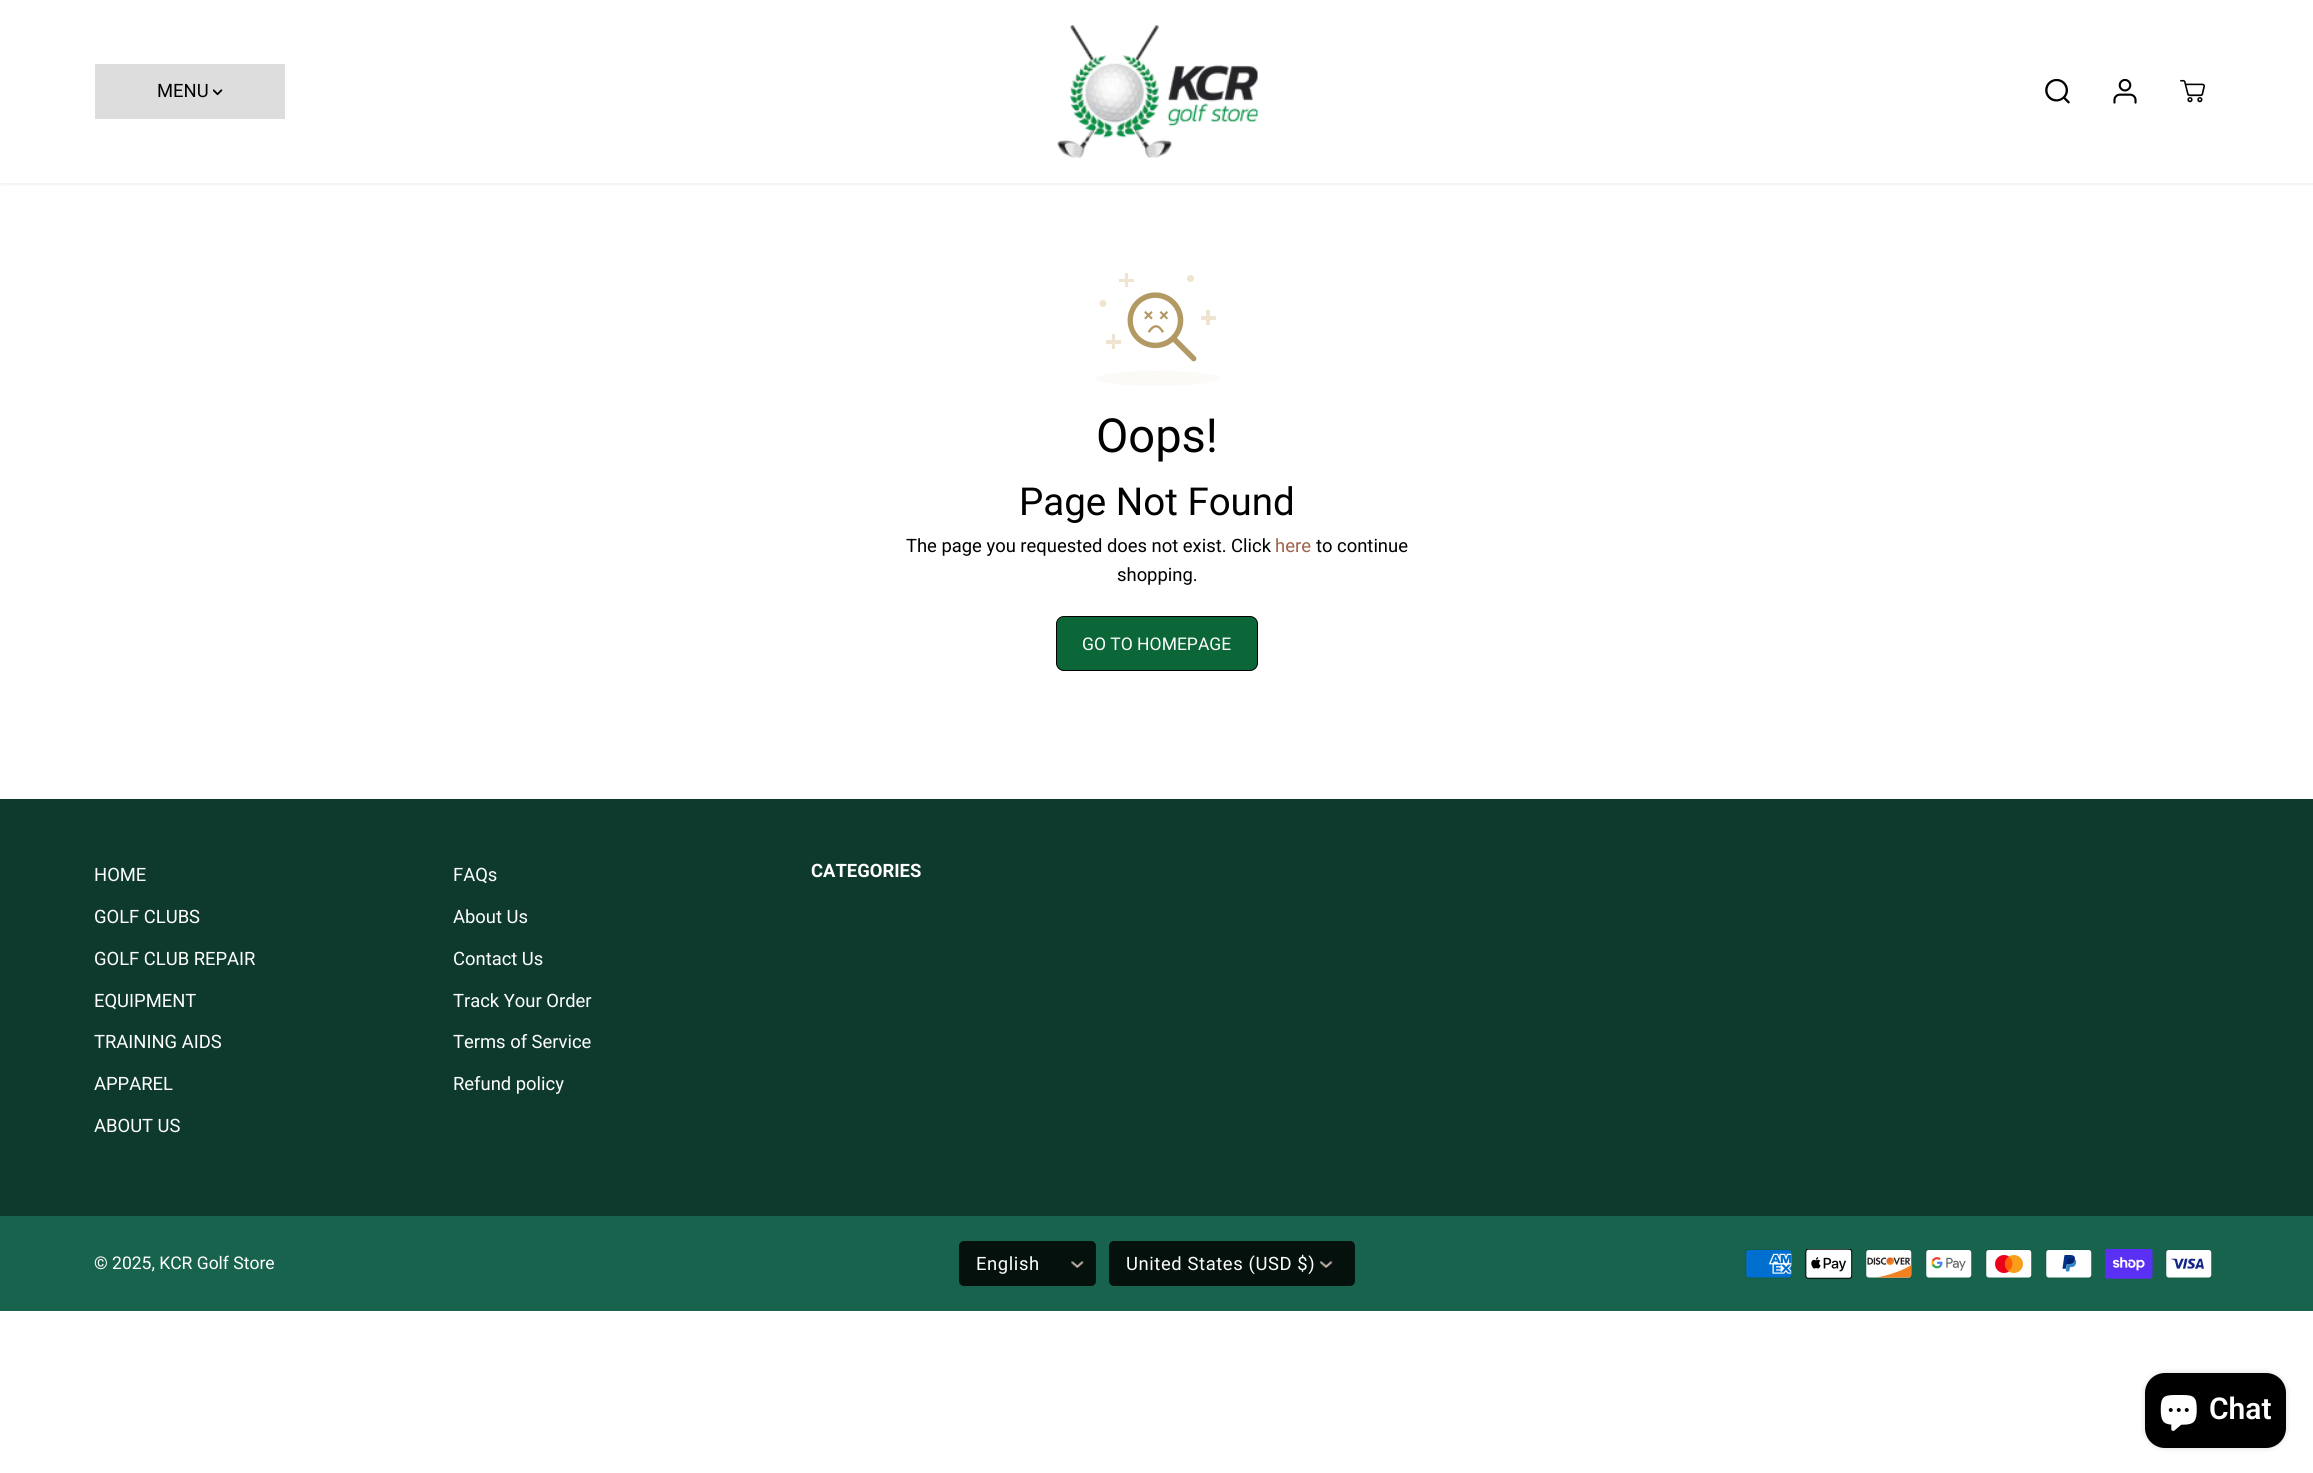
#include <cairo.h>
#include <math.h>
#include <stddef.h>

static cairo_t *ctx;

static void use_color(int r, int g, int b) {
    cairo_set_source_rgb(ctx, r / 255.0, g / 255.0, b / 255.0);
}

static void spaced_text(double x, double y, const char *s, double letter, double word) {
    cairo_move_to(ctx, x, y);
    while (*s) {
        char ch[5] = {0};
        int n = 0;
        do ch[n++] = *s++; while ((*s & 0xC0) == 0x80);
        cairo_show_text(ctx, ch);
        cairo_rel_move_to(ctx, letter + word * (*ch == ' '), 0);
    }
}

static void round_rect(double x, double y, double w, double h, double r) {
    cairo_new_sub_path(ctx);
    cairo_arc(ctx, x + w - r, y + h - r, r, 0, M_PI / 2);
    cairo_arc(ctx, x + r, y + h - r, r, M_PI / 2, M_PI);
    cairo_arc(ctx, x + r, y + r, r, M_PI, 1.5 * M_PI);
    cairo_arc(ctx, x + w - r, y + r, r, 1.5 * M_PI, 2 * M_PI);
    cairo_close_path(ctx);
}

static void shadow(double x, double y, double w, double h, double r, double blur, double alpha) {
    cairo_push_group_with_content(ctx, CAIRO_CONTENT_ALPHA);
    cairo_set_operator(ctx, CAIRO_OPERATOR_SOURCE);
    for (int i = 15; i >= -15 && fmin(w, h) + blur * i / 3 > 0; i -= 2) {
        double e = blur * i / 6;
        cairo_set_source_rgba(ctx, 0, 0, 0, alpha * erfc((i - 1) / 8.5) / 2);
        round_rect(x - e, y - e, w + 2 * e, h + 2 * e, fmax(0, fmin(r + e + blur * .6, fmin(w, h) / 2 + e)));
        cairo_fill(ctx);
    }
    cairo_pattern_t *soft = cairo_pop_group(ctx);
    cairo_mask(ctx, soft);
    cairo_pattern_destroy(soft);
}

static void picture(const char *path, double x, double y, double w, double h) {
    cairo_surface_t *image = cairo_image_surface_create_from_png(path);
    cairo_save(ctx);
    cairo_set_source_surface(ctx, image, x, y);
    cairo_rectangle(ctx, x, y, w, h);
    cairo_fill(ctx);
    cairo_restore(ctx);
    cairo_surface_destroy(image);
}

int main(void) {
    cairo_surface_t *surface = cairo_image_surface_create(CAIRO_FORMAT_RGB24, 2313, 1473);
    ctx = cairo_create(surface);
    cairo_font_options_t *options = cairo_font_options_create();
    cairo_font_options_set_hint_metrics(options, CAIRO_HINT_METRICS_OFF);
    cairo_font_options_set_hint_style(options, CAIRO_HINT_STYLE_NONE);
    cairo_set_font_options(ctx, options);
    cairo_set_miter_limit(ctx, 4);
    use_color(255, 255, 255);
    cairo_paint(ctx);
    cairo_save(ctx);
    cairo_set_fill_rule(ctx, CAIRO_FILL_RULE_EVEN_ODD);
    cairo_new_path(ctx);
    cairo_move_to(ctx, 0, 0);
    cairo_line_to(ctx, 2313, 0);
    cairo_line_to(ctx, 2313, 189);
    cairo_line_to(ctx, 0, 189);
    cairo_close_path(ctx);
    cairo_move_to(ctx, 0, 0);
    cairo_line_to(ctx, 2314, 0);
    cairo_line_to(ctx, 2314, 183);
    cairo_line_to(ctx, 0, 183);
    cairo_close_path(ctx);
    cairo_clip(ctx);
    use_color(0, 0, 0);
    shadow(0, 3, 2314, 182, 0, 1, 0.05);
    cairo_restore(ctx);
    use_color(221, 221, 221);
    cairo_rectangle(ctx, 95, 64, 190, 55);
    cairo_fill(ctx);
    cairo_select_font_face(ctx, "Roboto", CAIRO_FONT_SLANT_NORMAL, CAIRO_FONT_WEIGHT_NORMAL);
    cairo_set_font_size(ctx, 18.4);
    use_color(0, 0, 0);
    cairo_move_to(ctx, 157, 97);
    cairo_show_text(ctx, "MENU");
    picture("img1.png", 213, 89, 10, 7);
    picture("img2.png", 1057, 25, 201, 133);
    picture("img3.png", 2045, 79, 25, 25);
    picture("img4.png", 2113, 79, 24, 25);
    picture("img5.png", 2180, 79, 25, 24);
    picture("img6.png", 1095, 273, 125, 113);
    cairo_set_font_size(ctx, 47);
    cairo_move_to(ctx, 1096, 452);
    cairo_show_text(ctx, "Oops!");
    cairo_set_font_size(ctx, 38.5);
    cairo_move_to(ctx, 1019, 515);
    cairo_show_text(ctx, "Page Not Found");
    cairo_set_font_size(ctx, 18.4);
    cairo_move_to(ctx, 906, 552);
    cairo_show_text(ctx, "The page you requested does not exist. Click");
    use_color(157, 99, 72);
    cairo_move_to(ctx, 1275, 552);
    cairo_show_text(ctx, "here");
    use_color(0, 0, 0);
    cairo_move_to(ctx, 1316, 552);
    cairo_show_text(ctx, "to continue");
    cairo_move_to(ctx, 1117, 581);
    cairo_show_text(ctx, "shopping.");
    use_color(11, 102, 56);
    round_rect(1056.5, 616.5, 201, 54, 7.5);
    cairo_fill_preserve(ctx);
    use_color(0, 0, 0);
    cairo_set_line_width(ctx, 1);
    cairo_stroke(ctx);
    cairo_set_font_size(ctx, 17.5);
    use_color(255, 255, 255);
    cairo_move_to(ctx, 1082, 650);
    cairo_show_text(ctx, "GO TO HOMEPAGE");
    use_color(14, 58, 45);
    cairo_rectangle(ctx, 0, 799, 2313, 417);
    cairo_fill(ctx);
    cairo_set_font_size(ctx, 18.4);
    use_color(255, 255, 255);
    cairo_move_to(ctx, 94, 881);
    cairo_show_text(ctx, "HOME");
    cairo_move_to(ctx, 94, 923);
    cairo_show_text(ctx, "GOLF CLUBS");
    cairo_move_to(ctx, 94, 965);
    cairo_show_text(ctx, "GOLF CLUB REPAIR");
    cairo_move_to(ctx, 94, 1007);
    cairo_show_text(ctx, "EQUIPMENT");
    cairo_move_to(ctx, 94, 1048);
    cairo_show_text(ctx, "TRAINING AIDS");
    cairo_move_to(ctx, 94, 1090);
    cairo_show_text(ctx, "APPAREL");
    cairo_move_to(ctx, 94, 1132);
    cairo_show_text(ctx, "ABOUT US");
    cairo_move_to(ctx, 453, 881);
    cairo_show_text(ctx, "FAQs");
    cairo_move_to(ctx, 453, 923);
    cairo_show_text(ctx, "About Us");
    cairo_move_to(ctx, 453, 965);
    cairo_show_text(ctx, "Contact Us");
    cairo_move_to(ctx, 453, 1007);
    cairo_show_text(ctx, "Track Your Order");
    cairo_move_to(ctx, 453, 1048);
    cairo_show_text(ctx, "Terms of Service");
    cairo_move_to(ctx, 453, 1090);
    cairo_show_text(ctx, "Refund policy");
    cairo_select_font_face(ctx, "Roboto", CAIRO_FONT_SLANT_NORMAL, CAIRO_FONT_WEIGHT_BOLD);
    cairo_move_to(ctx, 811, 877);
    cairo_show_text(ctx, "CATEGORIES");
    use_color(24, 99, 77);
    cairo_rectangle(ctx, 0, 1216, 2313, 95);
    cairo_fill(ctx);
    cairo_select_font_face(ctx, "Roboto", CAIRO_FONT_SLANT_NORMAL, CAIRO_FONT_WEIGHT_NORMAL);
    cairo_set_font_size(ctx, 17.5);
    use_color(255, 255, 255);
    cairo_move_to(ctx, 94, 1269);
    cairo_show_text(ctx, "© 2025, KCR Golf Store");
    use_color(4, 17, 13);
    round_rect(959, 1241, 137, 45, 5);
    cairo_fill(ctx);
    picture("img7.png", 1071, 1261, 13, 7);
    cairo_set_font_size(ctx, 18.4);
    use_color(255, 255, 255);
    spaced_text(976, 1270, "English", 0.6, 0);
    use_color(4, 17, 13);
    round_rect(1109, 1241, 246, 45, 5);
    cairo_fill(ctx);
    picture("img8.png", 1320, 1261, 13, 7);
    use_color(255, 255, 255);
    spaced_text(1126, 1270, "United States (USD $)", 0.6, 0);
    picture("img9.png", 1745, 1249, 47, 30);
    picture("img10.png", 1805, 1249, 48, 30);
    picture("img11.png", 1865, 1249, 47, 30);
    picture("img12.png", 1925, 1249, 47, 30);
    picture("img13.png", 1985, 1249, 47, 30);
    picture("img14.png", 2045, 1249, 47, 30);
    picture("img15.png", 2105, 1249, 48, 30);
    picture("img16.png", 2165, 1249, 47, 30);
    use_color(0, 0, 0);
    shadow(2145, 1373, 141, 75, 20, 3, 0.15);
    use_color(0, 0, 0);
    round_rect(2145, 1373, 141, 75, 20);
    cairo_fill(ctx);
    picture("img17.png", 2160, 1395, 37, 36);
    cairo_select_font_face(ctx, "Roboto SemiBold", CAIRO_FONT_SLANT_NORMAL, CAIRO_FONT_WEIGHT_NORMAL);
    cairo_set_font_size(ctx, 30);
    use_color(255, 255, 255);
    cairo_move_to(ctx, 2209, 1419);
    cairo_show_text(ctx, "Chat");
    cairo_surface_write_to_png(surface, "result.png");
    cairo_font_options_destroy(options);
    cairo_destroy(ctx);
    cairo_surface_destroy(surface);
    return 0;
}
